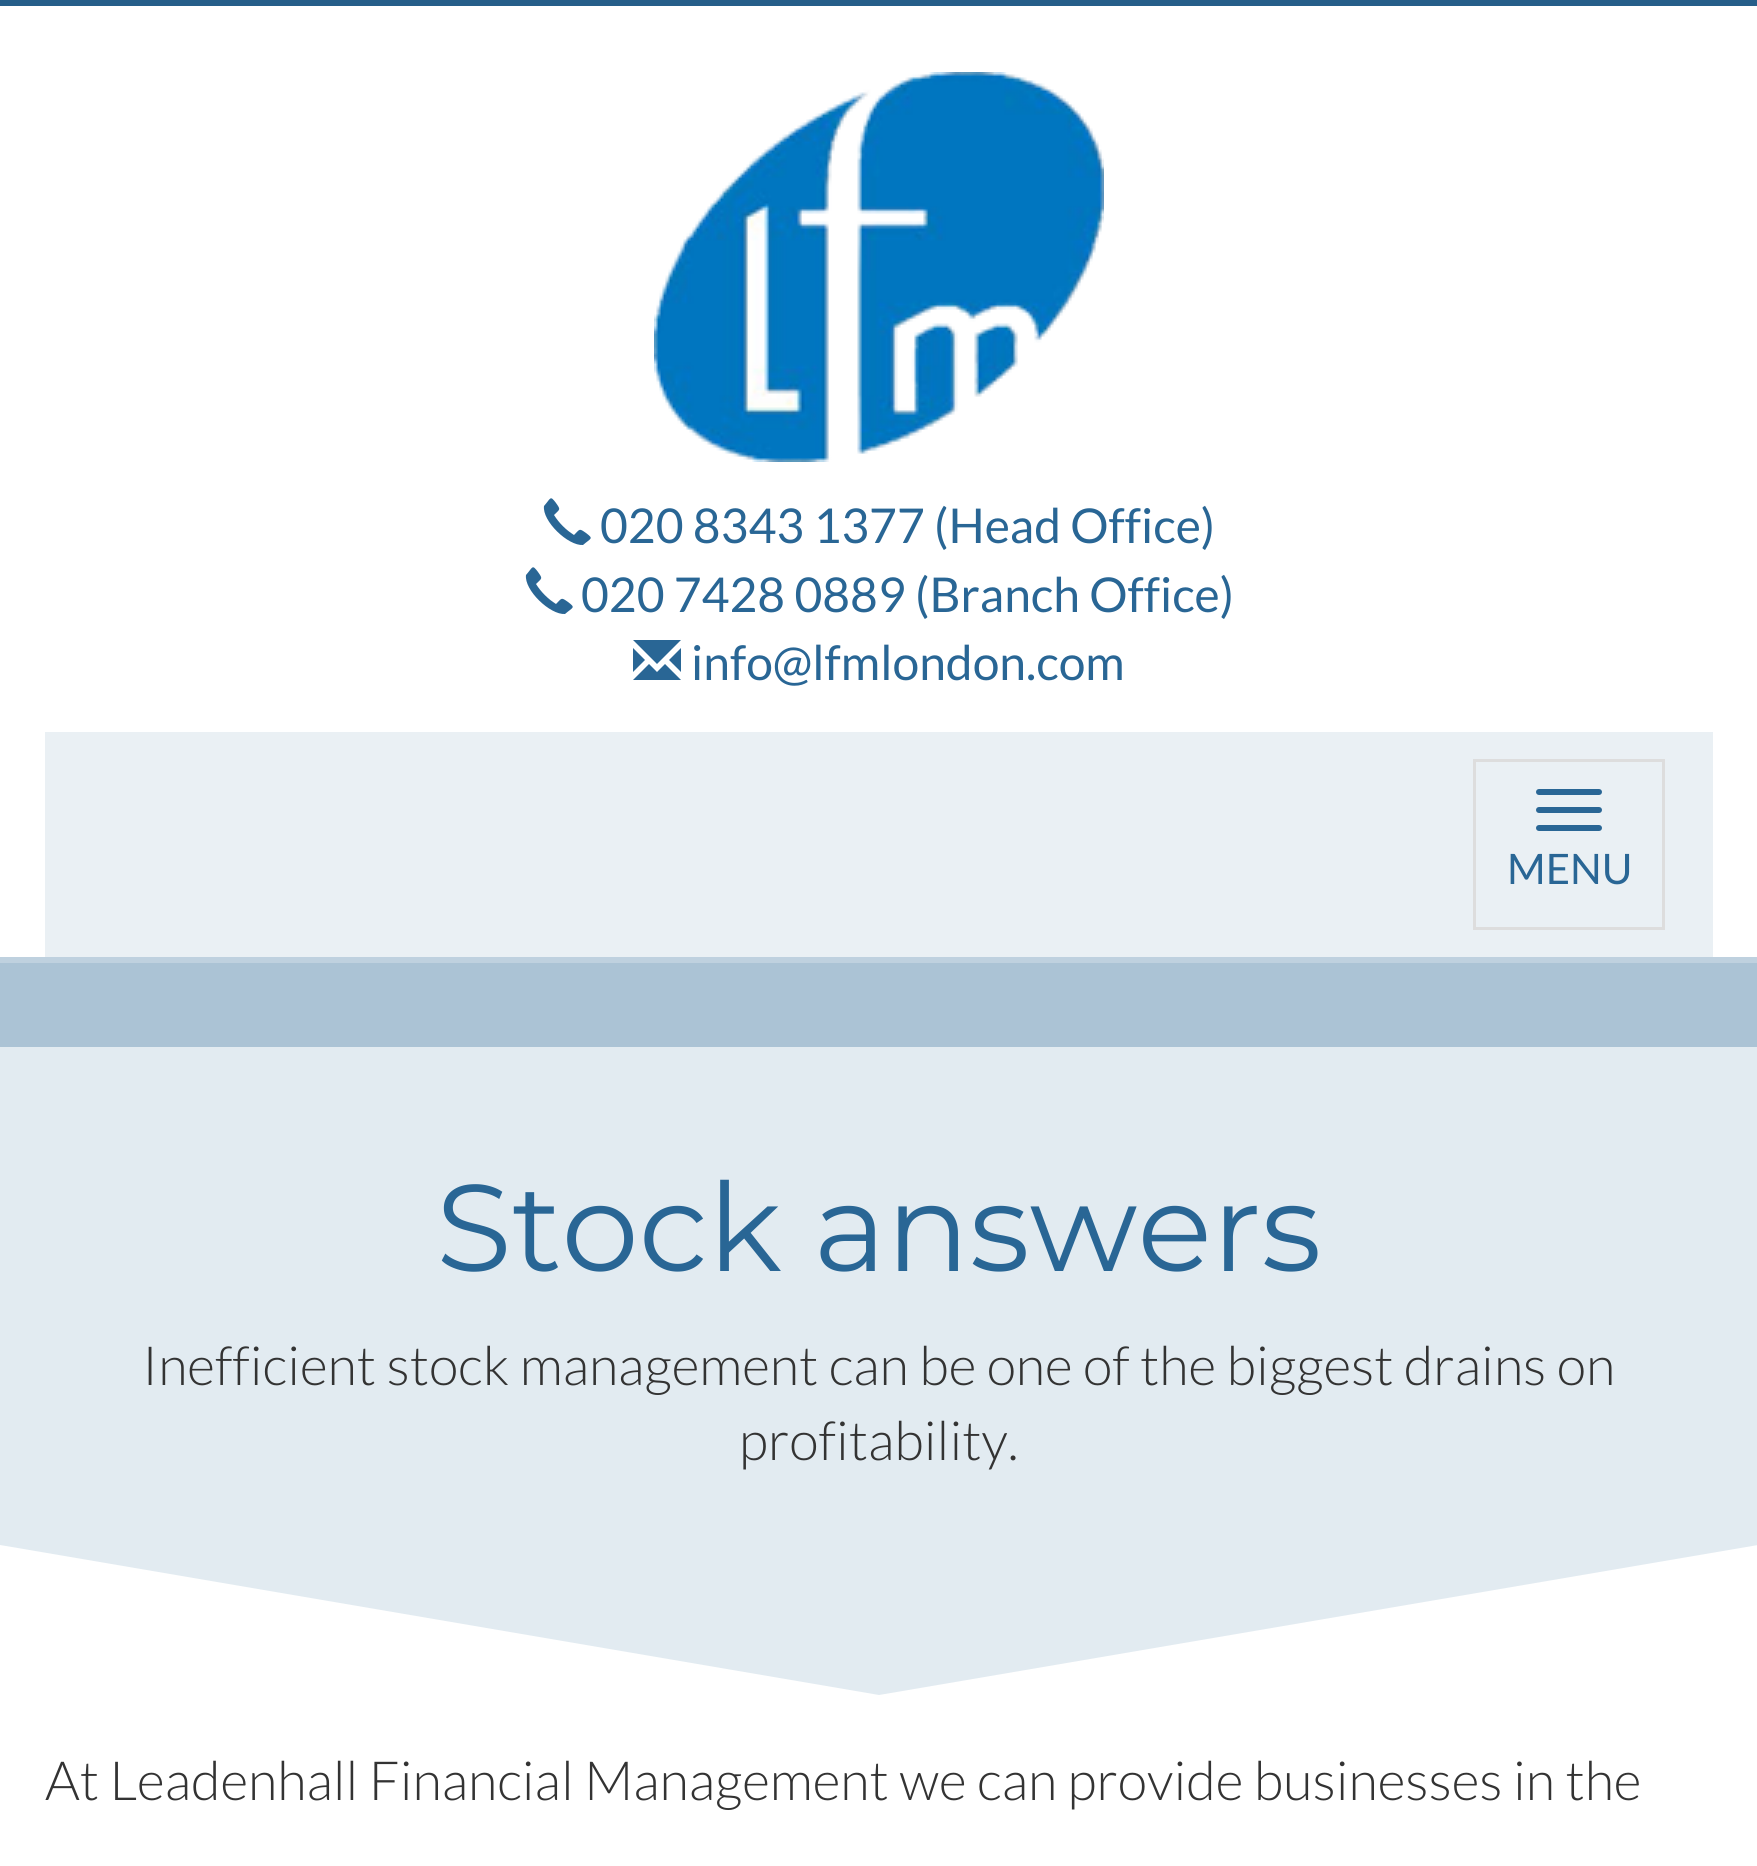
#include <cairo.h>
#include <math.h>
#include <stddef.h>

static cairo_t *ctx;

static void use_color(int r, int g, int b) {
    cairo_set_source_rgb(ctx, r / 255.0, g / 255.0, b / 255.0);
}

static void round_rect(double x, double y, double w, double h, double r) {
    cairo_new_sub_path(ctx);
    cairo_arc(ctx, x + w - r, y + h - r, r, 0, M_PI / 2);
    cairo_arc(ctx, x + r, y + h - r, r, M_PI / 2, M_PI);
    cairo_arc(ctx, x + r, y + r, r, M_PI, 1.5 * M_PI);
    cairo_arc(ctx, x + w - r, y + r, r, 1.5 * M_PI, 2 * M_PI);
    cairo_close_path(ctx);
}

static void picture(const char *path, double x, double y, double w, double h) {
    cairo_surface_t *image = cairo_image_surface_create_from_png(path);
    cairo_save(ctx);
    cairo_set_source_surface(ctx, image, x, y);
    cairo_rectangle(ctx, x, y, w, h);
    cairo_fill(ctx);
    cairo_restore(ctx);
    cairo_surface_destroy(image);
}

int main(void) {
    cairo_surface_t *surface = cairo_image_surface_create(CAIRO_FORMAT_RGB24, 1757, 1866);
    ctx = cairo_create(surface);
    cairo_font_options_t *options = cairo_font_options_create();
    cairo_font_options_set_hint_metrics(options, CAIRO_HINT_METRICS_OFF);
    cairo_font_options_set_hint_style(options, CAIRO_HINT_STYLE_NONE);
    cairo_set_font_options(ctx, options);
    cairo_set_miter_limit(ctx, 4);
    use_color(255, 255, 255);
    cairo_paint(ctx);
    use_color(191, 209, 223);
    cairo_rectangle(ctx, 0, 957, 1757, 6);
    cairo_fill(ctx);
    use_color(38, 94, 137);
    cairo_rectangle(ctx, 0, 0, 1757, 6);
    cairo_fill(ctx);
    picture("img1.png", 654, 72, 450, 390);
    use_color(41, 102, 149);
    cairo_new_path(ctx);
    cairo_move_to(ctx, 544, 506);
    cairo_curve_to(ctx, 542, 521, 568, 546, 583, 545);
    cairo_curve_to(ctx, 591, 538, 594, 539, 586, 533);
    cairo_curve_to(ctx, 579, 528, 580, 529, 574, 535);
    cairo_curve_to(ctx, 566, 530, 559, 523, 554, 515);
    cairo_curve_to(ctx, 560, 509, 561, 510, 556, 503);
    cairo_curve_to(ctx, 550, 495, 551, 498, 544, 506);
    cairo_close_path(ctx);
    cairo_fill(ctx);
    cairo_select_font_face(ctx, "Lato", CAIRO_FONT_SLANT_NORMAL, CAIRO_FONT_WEIGHT_NORMAL);
    cairo_set_font_size(ctx, 48);
    cairo_move_to(ctx, 600, 543);
    cairo_show_text(ctx, "020 8343 1377 (Head Office)");
    cairo_new_path(ctx);
    cairo_move_to(ctx, 526, 575);
    cairo_curve_to(ctx, 524, 590, 550, 615, 565, 614);
    cairo_curve_to(ctx, 573, 607, 576, 608, 568, 602);
    cairo_curve_to(ctx, 561, 597, 562, 598, 556, 604);
    cairo_curve_to(ctx, 548, 599, 541, 592, 536, 584);
    cairo_curve_to(ctx, 542, 578, 543, 579, 538, 572);
    cairo_curve_to(ctx, 532, 564, 533, 567, 526, 575);
    cairo_close_path(ctx);
    cairo_fill(ctx);
    cairo_move_to(ctx, 581, 612);
    cairo_show_text(ctx, "020 7428 0889 (Branch Office)");
    cairo_new_path(ctx);
    cairo_move_to(ctx, 633, 680);
    cairo_line_to(ctx, 649, 664);
    cairo_line_to(ctx, 657, 672);
    cairo_line_to(ctx, 665, 664);
    cairo_line_to(ctx, 681, 680);
    cairo_close_path(ctx);
    cairo_move_to(ctx, 633, 672);
    cairo_line_to(ctx, 633, 648);
    cairo_line_to(ctx, 645, 660);
    cairo_close_path(ctx);
    cairo_move_to(ctx, 633, 640);
    cairo_line_to(ctx, 657, 664);
    cairo_line_to(ctx, 681, 640);
    cairo_close_path(ctx);
    cairo_move_to(ctx, 669, 660);
    cairo_line_to(ctx, 681, 648);
    cairo_line_to(ctx, 681, 672);
    cairo_close_path(ctx);
    cairo_fill(ctx);
    cairo_move_to(ctx, 691, 680);
    cairo_show_text(ctx, "info@lfmlondon.com");
    use_color(234, 240, 244);
    cairo_rectangle(ctx, 45, 732, 1668, 225);
    cairo_fill(ctx);
    cairo_rectangle(ctx, 1474.5, 760.5, 189, 168);
    use_color(221, 221, 221);
    cairo_set_line_width(ctx, 3);
    cairo_stroke(ctx);
    use_color(41, 102, 149);
    round_rect(1536, 789, 66, 6, 3);
    cairo_fill(ctx);
    round_rect(1536, 807, 66, 6, 3);
    cairo_fill(ctx);
    round_rect(1536, 825, 66, 6, 3);
    cairo_fill(ctx);
    cairo_set_font_size(ctx, 42);
    cairo_move_to(ctx, 1507, 884);
    cairo_show_text(ctx, "MENU");
    use_color(226, 235, 241);
    cairo_rectangle(ctx, 0, 1047, 1757, 498);
    cairo_fill(ctx);
    use_color(171, 195, 213);
    cairo_rectangle(ctx, 0, 963, 1757, 84);
    cairo_fill(ctx);
    cairo_select_font_face(ctx, "Montserrat", CAIRO_FONT_SLANT_NORMAL, CAIRO_FONT_WEIGHT_NORMAL);
    cairo_set_font_size(ctx, 123);
    use_color(41, 102, 149);
    cairo_move_to(ctx, 436, 1271);
    cairo_show_text(ctx, "Stock answers");
    cairo_select_font_face(ctx, "Lato Light", CAIRO_FONT_SLANT_NORMAL, CAIRO_FONT_WEIGHT_NORMAL);
    cairo_set_font_size(ctx, 54);
    use_color(51, 51, 51);
    cairo_move_to(ctx, 142, 1385);
    cairo_show_text(ctx, "Inefficient stock management can be one of the biggest drains on");
    cairo_move_to(ctx, 739, 1460);
    cairo_show_text(ctx, "profitability.");
    use_color(226, 235, 241);
    cairo_new_path(ctx);
    cairo_move_to(ctx, 0, 1545);
    cairo_line_to(ctx, 879, 1695);
    cairo_line_to(ctx, 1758, 1545);
    cairo_close_path(ctx);
    cairo_fill(ctx);
    use_color(51, 51, 51);
    cairo_move_to(ctx, 45, 1800);
    cairo_show_text(ctx, "At Leadenhall Financial Management we can provide businesses in the");
    cairo_surface_write_to_png(surface, "result.png");
    cairo_font_options_destroy(options);
    cairo_destroy(ctx);
    cairo_surface_destroy(surface);
    return 0;
}
